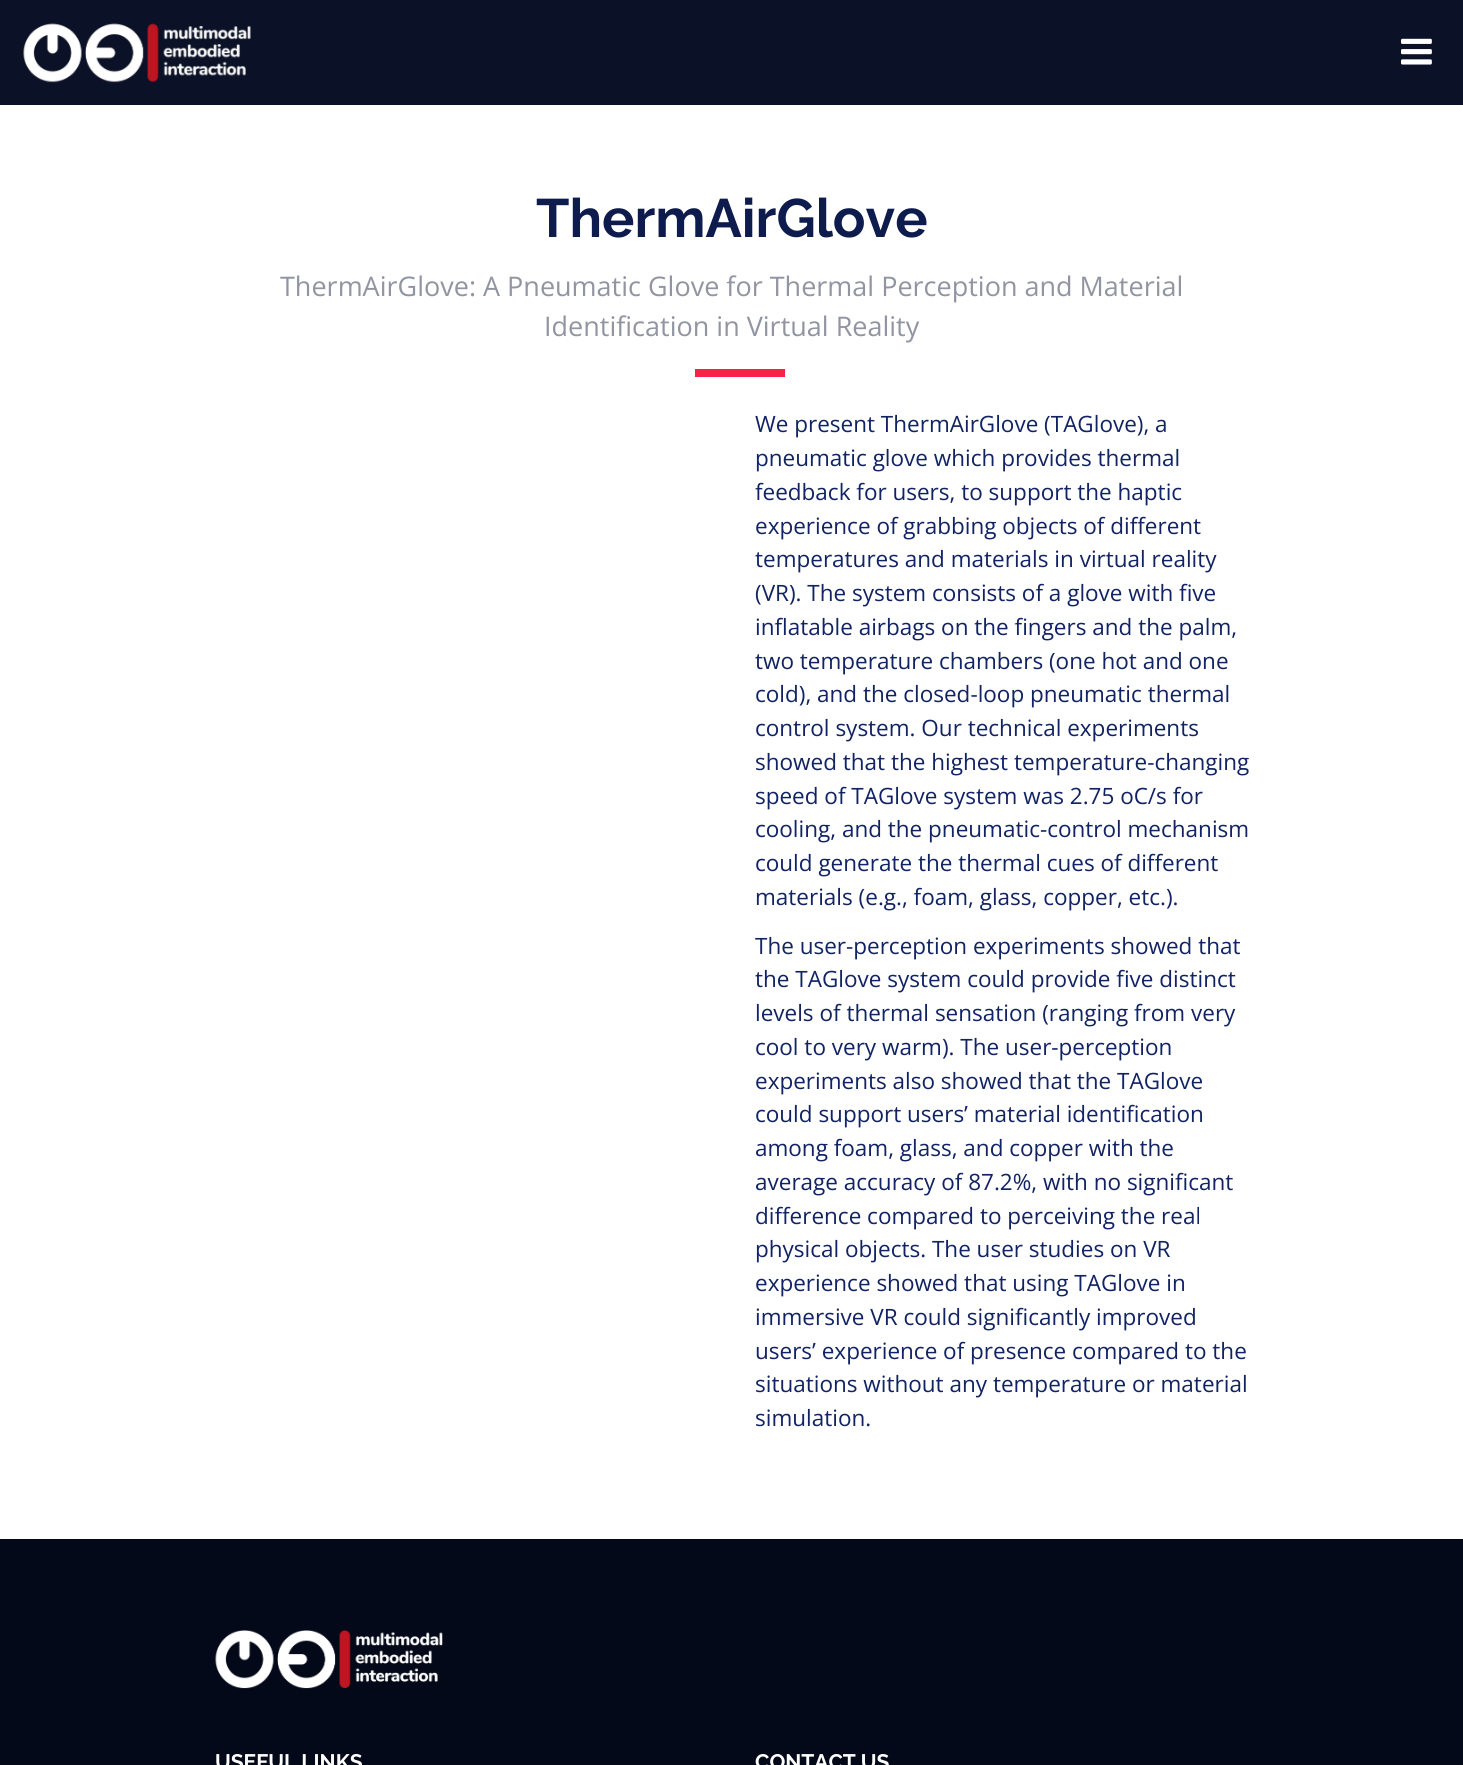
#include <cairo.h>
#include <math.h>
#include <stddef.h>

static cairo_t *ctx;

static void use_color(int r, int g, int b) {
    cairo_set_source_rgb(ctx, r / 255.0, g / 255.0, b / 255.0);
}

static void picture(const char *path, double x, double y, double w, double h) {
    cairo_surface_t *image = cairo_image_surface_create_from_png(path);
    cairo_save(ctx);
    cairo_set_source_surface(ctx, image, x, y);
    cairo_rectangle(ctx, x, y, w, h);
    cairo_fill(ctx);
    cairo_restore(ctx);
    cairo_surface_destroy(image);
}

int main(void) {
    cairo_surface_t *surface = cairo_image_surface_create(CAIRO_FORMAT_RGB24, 1463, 1765);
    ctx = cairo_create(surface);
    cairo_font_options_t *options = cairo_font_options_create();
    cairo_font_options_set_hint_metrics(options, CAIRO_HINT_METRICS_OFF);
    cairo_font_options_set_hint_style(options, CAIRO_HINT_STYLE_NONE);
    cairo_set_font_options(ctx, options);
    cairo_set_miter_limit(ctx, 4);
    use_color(255, 255, 255);
    cairo_paint(ctx);
    use_color(11, 17, 38);
    cairo_rectangle(ctx, 0, 0, 1463, 105);
    cairo_fill(ctx);
    picture("img1.png", 23, 23, 228, 60);
    picture("img2.png", 1401, 38, 31, 27);
    cairo_select_font_face(ctx, "Raleway", CAIRO_FONT_SLANT_NORMAL, CAIRO_FONT_WEIGHT_BOLD);
    cairo_set_font_size(ctx, 54);
    use_color(14, 27, 77);
    cairo_move_to(ctx, 536, 237);
    cairo_show_text(ctx, "ThermAirGlove");
    cairo_select_font_face(ctx, "Open Sans", CAIRO_FONT_SLANT_NORMAL, CAIRO_FONT_WEIGHT_NORMAL);
    cairo_set_font_size(ctx, 27);
    use_color(145, 149, 162);
    cairo_move_to(ctx, 280, 296);
    cairo_show_text(ctx, "ThermAirGlove: A Pneumatic Glove for Thermal Perception and Material");
    cairo_move_to(ctx, 544, 336);
    cairo_show_text(ctx, "Identification in Virtual Reality");
    use_color(248, 34, 73);
    cairo_rectangle(ctx, 695, 369, 90, 8);
    cairo_fill(ctx);
    cairo_set_font_size(ctx, 22.5);
    use_color(17, 35, 99);
    cairo_move_to(ctx, 755, 432);
    cairo_show_text(ctx, "We present ThermAirGlove (TAGlove), a");
    cairo_move_to(ctx, 755, 466);
    cairo_show_text(ctx, "pneumatic glove which provides thermal");
    cairo_move_to(ctx, 755, 500);
    cairo_show_text(ctx, "feedback for users, to support the haptic");
    cairo_move_to(ctx, 755, 534);
    cairo_show_text(ctx, "experience of grabbing objects of different");
    cairo_move_to(ctx, 755, 567);
    cairo_show_text(ctx, "temperatures and materials in virtual reality");
    cairo_move_to(ctx, 755, 601);
    cairo_show_text(ctx, "(VR). The system consists of a glove with five");
    cairo_move_to(ctx, 755, 635);
    cairo_show_text(ctx, "inflatable airbags on the fingers and the palm,");
    cairo_move_to(ctx, 755, 669);
    cairo_show_text(ctx, "two temperature chambers (one hot and one");
    cairo_move_to(ctx, 755, 702);
    cairo_show_text(ctx, "cold), and the closed-loop pneumatic thermal");
    cairo_move_to(ctx, 755, 736);
    cairo_show_text(ctx, "control system. Our technical experiments");
    cairo_move_to(ctx, 755, 770);
    cairo_show_text(ctx, "showed that the highest temperature-changing");
    cairo_move_to(ctx, 755, 804);
    cairo_show_text(ctx, "speed of TAGlove system was 2.75 oC/s for");
    cairo_move_to(ctx, 755, 837);
    cairo_show_text(ctx, "cooling, and the pneumatic-control mechanism");
    cairo_move_to(ctx, 755, 871);
    cairo_show_text(ctx, "could generate the thermal cues of different");
    cairo_move_to(ctx, 755, 905);
    cairo_show_text(ctx, "materials (e.g., foam, glass, copper, etc.).");
    cairo_move_to(ctx, 755, 954);
    cairo_show_text(ctx, "The user-perception experiments showed that");
    cairo_move_to(ctx, 755, 987);
    cairo_show_text(ctx, "the TAGlove system could provide five distinct");
    cairo_move_to(ctx, 755, 1021);
    cairo_show_text(ctx, "levels of thermal sensation (ranging from very");
    cairo_move_to(ctx, 755, 1055);
    cairo_show_text(ctx, "cool to very warm). The user-perception");
    cairo_move_to(ctx, 755, 1089);
    cairo_show_text(ctx, "experiments also showed that the TAGlove");
    cairo_move_to(ctx, 755, 1122);
    cairo_show_text(ctx, "could support users’ material identification");
    cairo_move_to(ctx, 755, 1156);
    cairo_show_text(ctx, "among foam, glass, and copper with the");
    cairo_move_to(ctx, 755, 1190);
    cairo_show_text(ctx, "average accuracy of 87.2%, with no significant");
    cairo_move_to(ctx, 755, 1224);
    cairo_show_text(ctx, "difference compared to perceiving the real");
    cairo_move_to(ctx, 755, 1257);
    cairo_show_text(ctx, "physical objects. The user studies on VR");
    cairo_move_to(ctx, 755, 1291);
    cairo_show_text(ctx, "experience showed that using TAGlove in");
    cairo_move_to(ctx, 755, 1325);
    cairo_show_text(ctx, "immersive VR could significantly improved");
    cairo_move_to(ctx, 755, 1359);
    cairo_show_text(ctx, "users’ experience of presence compared to the");
    cairo_move_to(ctx, 755, 1392);
    cairo_show_text(ctx, "situations without any temperature or material");
    cairo_move_to(ctx, 755, 1426);
    cairo_show_text(ctx, "simulation.");
    use_color(4, 9, 25);
    cairo_rectangle(ctx, 0, 1539, 1463, 226);
    cairo_fill(ctx);
    picture("img3.png", 215, 1630, 228, 59);
    cairo_select_font_face(ctx, "Raleway", CAIRO_FONT_SLANT_NORMAL, CAIRO_FONT_WEIGHT_BOLD);
    cairo_set_font_size(ctx, 21);
    use_color(255, 255, 255);
    cairo_move_to(ctx, 215, 1769);
    cairo_show_text(ctx, "USEFUL LINKS");
    cairo_move_to(ctx, 755, 1769);
    cairo_show_text(ctx, "CONTACT US");
    cairo_surface_write_to_png(surface, "result.png");
    cairo_font_options_destroy(options);
    cairo_destroy(ctx);
    cairo_surface_destroy(surface);
    return 0;
}
